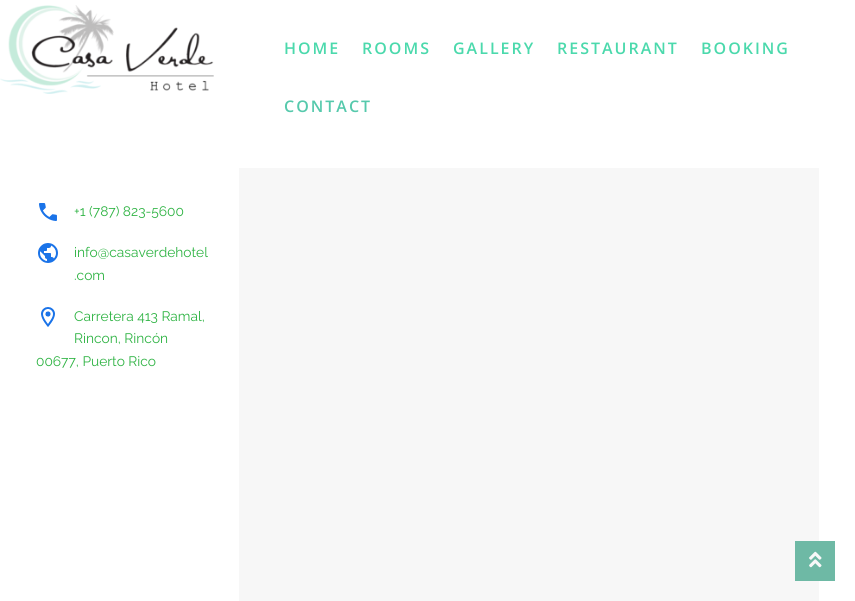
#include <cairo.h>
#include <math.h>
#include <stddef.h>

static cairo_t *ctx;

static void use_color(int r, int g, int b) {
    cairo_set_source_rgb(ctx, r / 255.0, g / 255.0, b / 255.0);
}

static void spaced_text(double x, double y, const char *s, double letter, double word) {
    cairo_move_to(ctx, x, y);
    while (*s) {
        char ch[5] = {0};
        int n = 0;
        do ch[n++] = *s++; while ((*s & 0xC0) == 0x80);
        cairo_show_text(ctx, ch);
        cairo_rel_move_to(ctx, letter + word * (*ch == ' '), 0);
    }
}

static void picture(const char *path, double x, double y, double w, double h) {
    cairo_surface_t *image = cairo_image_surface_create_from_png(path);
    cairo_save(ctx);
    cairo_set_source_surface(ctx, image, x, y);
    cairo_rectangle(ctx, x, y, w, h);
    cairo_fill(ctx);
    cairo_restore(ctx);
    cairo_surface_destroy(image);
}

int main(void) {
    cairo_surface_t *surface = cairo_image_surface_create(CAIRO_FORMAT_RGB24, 855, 601);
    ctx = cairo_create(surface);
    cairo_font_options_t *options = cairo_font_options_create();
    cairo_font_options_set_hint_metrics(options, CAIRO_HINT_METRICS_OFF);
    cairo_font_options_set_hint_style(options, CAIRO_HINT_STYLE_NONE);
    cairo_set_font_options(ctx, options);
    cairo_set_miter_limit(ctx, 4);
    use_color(255, 255, 255);
    cairo_paint(ctx);
    picture("img1.png", 0, 5, 214, 89);
    cairo_select_font_face(ctx, "Open Sans SemiBold", CAIRO_FONT_SLANT_NORMAL, CAIRO_FONT_WEIGHT_NORMAL);
    cairo_set_font_size(ctx, 16);
    use_color(75, 217, 172);
    spaced_text(284, 54, "HOME", 2, 0);
    spaced_text(362, 54, "ROOMS", 2, 0);
    spaced_text(453, 54, "GALLERY", 2, 0);
    spaced_text(557, 54, "RESTAURANT", 2, 0);
    spaced_text(701, 54, "BOOKING", 2, 0);
    use_color(86, 201, 172);
    spaced_text(284, 112, "CONTACT", 2, 0);
    picture("img2.png", 39, 203, 18, 18);
    cairo_select_font_face(ctx, "Raleway", CAIRO_FONT_SLANT_NORMAL, CAIRO_FONT_WEIGHT_NORMAL);
    cairo_set_font_size(ctx, 13.75);
    use_color(46, 179, 67);
    cairo_move_to(ctx, 74, 216);
    cairo_show_text(ctx, "+1 (787) 823-5600");
    picture("img3.png", 38, 243, 20, 20);
    cairo_move_to(ctx, 74, 257);
    cairo_show_text(ctx, "info@casaverdehotel");
    cairo_move_to(ctx, 74, 280);
    cairo_show_text(ctx, ".com");
    picture("img4.png", 41, 307, 14, 20);
    cairo_move_to(ctx, 74, 321);
    cairo_show_text(ctx, "Carretera 413 Ramal,");
    cairo_move_to(ctx, 74, 343);
    cairo_show_text(ctx, "Rincon, Rincón");
    cairo_move_to(ctx, 36, 366);
    cairo_show_text(ctx, "00677, Puerto Rico");
    use_color(247, 247, 247);
    cairo_rectangle(ctx, 239, 168, 580, 433);
    cairo_fill(ctx);
    use_color(110, 185, 165);
    cairo_rectangle(ctx, 795, 541, 40, 40);
    cairo_fill(ctx);
    picture("img5.png", 809, 551, 13, 17);
    cairo_surface_write_to_png(surface, "result.png");
    cairo_font_options_destroy(options);
    cairo_destroy(ctx);
    cairo_surface_destroy(surface);
    return 0;
}
